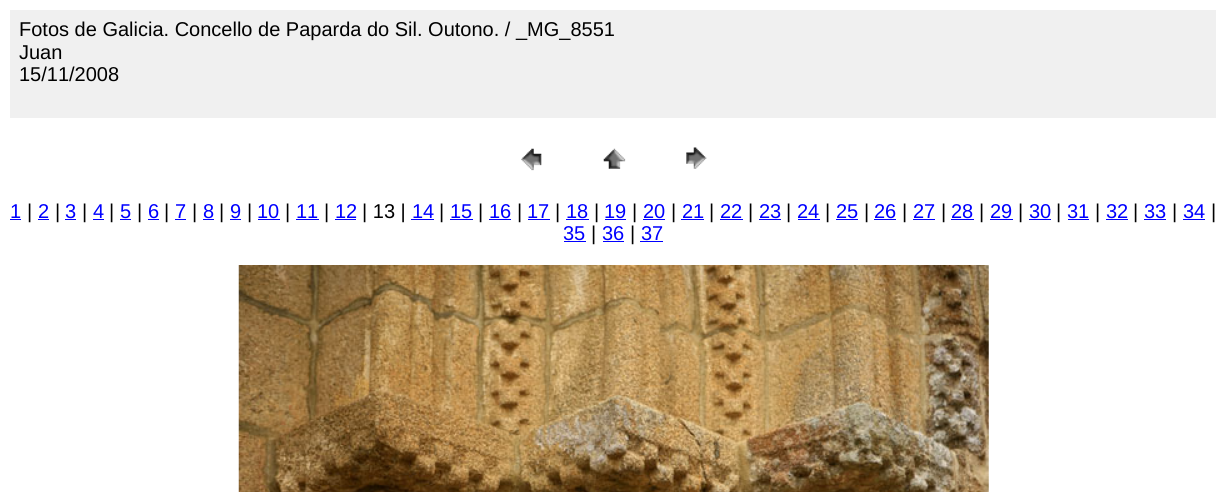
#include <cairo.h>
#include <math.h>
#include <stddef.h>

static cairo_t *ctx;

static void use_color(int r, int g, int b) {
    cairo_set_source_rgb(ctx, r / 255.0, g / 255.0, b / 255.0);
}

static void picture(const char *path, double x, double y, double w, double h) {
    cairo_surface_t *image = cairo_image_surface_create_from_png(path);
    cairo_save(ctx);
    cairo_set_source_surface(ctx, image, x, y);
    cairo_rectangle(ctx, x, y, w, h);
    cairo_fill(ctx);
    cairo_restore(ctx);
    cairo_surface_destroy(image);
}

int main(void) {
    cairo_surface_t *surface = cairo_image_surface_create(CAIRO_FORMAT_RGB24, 1226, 492);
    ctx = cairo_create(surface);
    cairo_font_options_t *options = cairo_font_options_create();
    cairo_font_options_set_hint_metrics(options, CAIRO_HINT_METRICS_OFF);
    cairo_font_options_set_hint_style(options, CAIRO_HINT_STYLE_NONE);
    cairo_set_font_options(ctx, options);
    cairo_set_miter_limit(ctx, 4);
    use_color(255, 255, 255);
    cairo_paint(ctx);
    use_color(240, 240, 240);
    cairo_rectangle(ctx, 10, 10, 1206, 108);
    cairo_fill(ctx);
    cairo_select_font_face(ctx, "Liberation Sans", CAIRO_FONT_SLANT_NORMAL, CAIRO_FONT_WEIGHT_NORMAL);
    cairo_set_font_size(ctx, 20);
    use_color(0, 0, 0);
    cairo_move_to(ctx, 19, 36);
    cairo_show_text(ctx, "Fotos de Galicia. Concello de Paparda do Sil. Outono. / _MG_8551");
    cairo_move_to(ctx, 19, 59);
    cairo_show_text(ctx, "Juan");
    cairo_move_to(ctx, 19, 81);
    cairo_show_text(ctx, "15/11/2008");
    picture("img1.png", 521, 148, 21, 23);
    picture("img2.png", 603, 148, 23, 21);
    picture("img3.png", 686, 147, 21, 22);
    use_color(0, 0, 255);
    cairo_move_to(ctx, 10, 218);
    cairo_show_text(ctx, "1");
    cairo_rectangle(ctx, 10, 219, 11, 1);
    cairo_fill(ctx);
    use_color(0, 0, 0);
    cairo_move_to(ctx, 27, 218);
    cairo_show_text(ctx, "|");
    use_color(0, 0, 255);
    cairo_move_to(ctx, 38, 218);
    cairo_show_text(ctx, "2");
    cairo_rectangle(ctx, 38, 219, 11, 1);
    cairo_fill(ctx);
    use_color(0, 0, 0);
    cairo_move_to(ctx, 55, 218);
    cairo_show_text(ctx, "|");
    use_color(0, 0, 255);
    cairo_move_to(ctx, 65, 218);
    cairo_show_text(ctx, "3");
    cairo_rectangle(ctx, 65, 219, 11, 1);
    cairo_fill(ctx);
    use_color(0, 0, 0);
    cairo_move_to(ctx, 82, 218);
    cairo_show_text(ctx, "|");
    use_color(0, 0, 255);
    cairo_move_to(ctx, 93, 218);
    cairo_show_text(ctx, "4");
    cairo_rectangle(ctx, 93, 219, 11, 1);
    cairo_fill(ctx);
    use_color(0, 0, 0);
    cairo_move_to(ctx, 109, 218);
    cairo_show_text(ctx, "|");
    use_color(0, 0, 255);
    cairo_move_to(ctx, 120, 218);
    cairo_show_text(ctx, "5");
    cairo_rectangle(ctx, 120, 219, 11, 1);
    cairo_fill(ctx);
    use_color(0, 0, 0);
    cairo_move_to(ctx, 137, 218);
    cairo_show_text(ctx, "|");
    use_color(0, 0, 255);
    cairo_move_to(ctx, 148, 218);
    cairo_show_text(ctx, "6");
    cairo_rectangle(ctx, 148, 219, 11, 1);
    cairo_fill(ctx);
    use_color(0, 0, 0);
    cairo_move_to(ctx, 164, 218);
    cairo_show_text(ctx, "|");
    use_color(0, 0, 255);
    cairo_move_to(ctx, 175, 218);
    cairo_show_text(ctx, "7");
    cairo_rectangle(ctx, 175, 219, 11, 1);
    cairo_fill(ctx);
    use_color(0, 0, 0);
    cairo_move_to(ctx, 192, 218);
    cairo_show_text(ctx, "|");
    use_color(0, 0, 255);
    cairo_move_to(ctx, 203, 218);
    cairo_show_text(ctx, "8");
    cairo_rectangle(ctx, 203, 219, 11, 1);
    cairo_fill(ctx);
    use_color(0, 0, 0);
    cairo_move_to(ctx, 219, 218);
    cairo_show_text(ctx, "|");
    use_color(0, 0, 255);
    cairo_move_to(ctx, 230, 218);
    cairo_show_text(ctx, "9");
    cairo_rectangle(ctx, 230, 219, 11, 1);
    cairo_fill(ctx);
    use_color(0, 0, 0);
    cairo_move_to(ctx, 247, 218);
    cairo_show_text(ctx, "|");
    use_color(0, 0, 255);
    cairo_move_to(ctx, 257, 218);
    cairo_show_text(ctx, "10");
    cairo_rectangle(ctx, 258, 219, 22, 1);
    cairo_fill(ctx);
    use_color(0, 0, 0);
    cairo_move_to(ctx, 285, 218);
    cairo_show_text(ctx, "|");
    use_color(0, 0, 255);
    cairo_move_to(ctx, 296, 218);
    cairo_show_text(ctx, "11");
    cairo_rectangle(ctx, 296, 219, 23, 1);
    cairo_fill(ctx);
    use_color(0, 0, 0);
    cairo_move_to(ctx, 324, 218);
    cairo_show_text(ctx, "|");
    use_color(0, 0, 255);
    cairo_move_to(ctx, 335, 218);
    cairo_show_text(ctx, "12");
    cairo_rectangle(ctx, 335, 219, 21, 1);
    cairo_fill(ctx);
    use_color(0, 0, 0);
    cairo_move_to(ctx, 362, 218);
    cairo_show_text(ctx, "| 13 |");
    use_color(0, 0, 255);
    cairo_move_to(ctx, 412, 218);
    cairo_show_text(ctx, "14");
    cairo_rectangle(ctx, 411, 219, 23, 1);
    cairo_fill(ctx);
    use_color(0, 0, 0);
    cairo_move_to(ctx, 439, 218);
    cairo_show_text(ctx, "|");
    use_color(0, 0, 255);
    cairo_move_to(ctx, 450, 218);
    cairo_show_text(ctx, "15");
    cairo_rectangle(ctx, 450, 219, 23, 1);
    cairo_fill(ctx);
    use_color(0, 0, 0);
    cairo_move_to(ctx, 478, 218);
    cairo_show_text(ctx, "|");
    use_color(0, 0, 255);
    cairo_move_to(ctx, 489, 218);
    cairo_show_text(ctx, "16");
    cairo_rectangle(ctx, 489, 219, 22, 1);
    cairo_fill(ctx);
    use_color(0, 0, 0);
    cairo_move_to(ctx, 517, 218);
    cairo_show_text(ctx, "|");
    use_color(0, 0, 255);
    cairo_move_to(ctx, 527, 218);
    cairo_show_text(ctx, "17");
    cairo_rectangle(ctx, 528, 219, 22, 1);
    cairo_fill(ctx);
    use_color(0, 0, 0);
    cairo_move_to(ctx, 555, 218);
    cairo_show_text(ctx, "|");
    use_color(0, 0, 255);
    cairo_move_to(ctx, 566, 218);
    cairo_show_text(ctx, "18");
    cairo_rectangle(ctx, 566, 219, 23, 1);
    cairo_fill(ctx);
    use_color(0, 0, 0);
    cairo_move_to(ctx, 594, 218);
    cairo_show_text(ctx, "|");
    use_color(0, 0, 255);
    cairo_move_to(ctx, 604, 218);
    cairo_show_text(ctx, "19");
    cairo_rectangle(ctx, 605, 219, 21, 1);
    cairo_fill(ctx);
    use_color(0, 0, 0);
    cairo_move_to(ctx, 632, 218);
    cairo_show_text(ctx, "|");
    use_color(0, 0, 255);
    cairo_move_to(ctx, 643, 218);
    cairo_show_text(ctx, "20");
    cairo_rectangle(ctx, 643, 219, 22, 1);
    cairo_fill(ctx);
    use_color(0, 0, 0);
    cairo_move_to(ctx, 671, 218);
    cairo_show_text(ctx, "|");
    use_color(0, 0, 255);
    cairo_move_to(ctx, 682, 218);
    cairo_show_text(ctx, "21");
    cairo_rectangle(ctx, 681, 219, 23, 1);
    cairo_fill(ctx);
    use_color(0, 0, 0);
    cairo_move_to(ctx, 709, 218);
    cairo_show_text(ctx, "|");
    use_color(0, 0, 255);
    cairo_move_to(ctx, 720, 218);
    cairo_show_text(ctx, "22");
    cairo_rectangle(ctx, 720, 219, 23, 1);
    cairo_fill(ctx);
    use_color(0, 0, 0);
    cairo_move_to(ctx, 748, 218);
    cairo_show_text(ctx, "|");
    use_color(0, 0, 255);
    cairo_move_to(ctx, 759, 218);
    cairo_show_text(ctx, "23");
    cairo_rectangle(ctx, 759, 219, 22, 1);
    cairo_fill(ctx);
    use_color(0, 0, 0);
    cairo_move_to(ctx, 786, 218);
    cairo_show_text(ctx, "|");
    use_color(0, 0, 255);
    cairo_move_to(ctx, 797, 218);
    cairo_show_text(ctx, "24");
    cairo_rectangle(ctx, 798, 219, 22, 1);
    cairo_fill(ctx);
    use_color(0, 0, 0);
    cairo_move_to(ctx, 825, 218);
    cairo_show_text(ctx, "|");
    use_color(0, 0, 255);
    cairo_move_to(ctx, 836, 218);
    cairo_show_text(ctx, "25");
    cairo_rectangle(ctx, 836, 219, 22, 1);
    cairo_fill(ctx);
    use_color(0, 0, 0);
    cairo_move_to(ctx, 864, 218);
    cairo_show_text(ctx, "|");
    use_color(0, 0, 255);
    cairo_move_to(ctx, 874, 218);
    cairo_show_text(ctx, "26");
    cairo_rectangle(ctx, 874, 219, 22, 1);
    cairo_fill(ctx);
    use_color(0, 0, 0);
    cairo_move_to(ctx, 902, 218);
    cairo_show_text(ctx, "|");
    use_color(0, 0, 255);
    cairo_move_to(ctx, 913, 218);
    cairo_show_text(ctx, "27");
    cairo_rectangle(ctx, 913, 219, 22, 1);
    cairo_fill(ctx);
    use_color(0, 0, 0);
    cairo_move_to(ctx, 941, 218);
    cairo_show_text(ctx, "|");
    use_color(0, 0, 255);
    cairo_move_to(ctx, 951, 218);
    cairo_show_text(ctx, "28");
    cairo_rectangle(ctx, 951, 219, 23, 1);
    cairo_fill(ctx);
    use_color(0, 0, 0);
    cairo_move_to(ctx, 979, 218);
    cairo_show_text(ctx, "|");
    use_color(0, 0, 255);
    cairo_move_to(ctx, 990, 218);
    cairo_show_text(ctx, "29");
    cairo_rectangle(ctx, 990, 219, 23, 1);
    cairo_fill(ctx);
    use_color(0, 0, 0);
    cairo_move_to(ctx, 1018, 218);
    cairo_show_text(ctx, "|");
    use_color(0, 0, 255);
    cairo_move_to(ctx, 1029, 218);
    cairo_show_text(ctx, "30");
    cairo_rectangle(ctx, 1029, 219, 22, 1);
    cairo_fill(ctx);
    use_color(0, 0, 0);
    cairo_move_to(ctx, 1056, 218);
    cairo_show_text(ctx, "|");
    use_color(0, 0, 255);
    cairo_move_to(ctx, 1067, 218);
    cairo_show_text(ctx, "31");
    cairo_rectangle(ctx, 1068, 219, 21, 1);
    cairo_fill(ctx);
    use_color(0, 0, 0);
    cairo_move_to(ctx, 1095, 218);
    cairo_show_text(ctx, "|");
    use_color(0, 0, 255);
    cairo_move_to(ctx, 1106, 218);
    cairo_show_text(ctx, "32");
    cairo_rectangle(ctx, 1106, 219, 22, 1);
    cairo_fill(ctx);
    use_color(0, 0, 0);
    cairo_move_to(ctx, 1133, 218);
    cairo_show_text(ctx, "|");
    use_color(0, 0, 255);
    cairo_move_to(ctx, 1144, 218);
    cairo_show_text(ctx, "33");
    cairo_rectangle(ctx, 1144, 219, 22, 1);
    cairo_fill(ctx);
    use_color(0, 0, 0);
    cairo_move_to(ctx, 1172, 218);
    cairo_show_text(ctx, "|");
    use_color(0, 0, 255);
    cairo_move_to(ctx, 1183, 218);
    cairo_show_text(ctx, "34");
    cairo_rectangle(ctx, 1183, 219, 22, 1);
    cairo_fill(ctx);
    use_color(0, 0, 0);
    cairo_move_to(ctx, 1211, 218);
    cairo_show_text(ctx, "|");
    use_color(0, 0, 255);
    cairo_move_to(ctx, 563, 240);
    cairo_show_text(ctx, "35");
    cairo_rectangle(ctx, 564, 241, 22, 1);
    cairo_fill(ctx);
    use_color(0, 0, 0);
    cairo_move_to(ctx, 591, 240);
    cairo_show_text(ctx, "|");
    use_color(0, 0, 255);
    cairo_move_to(ctx, 602, 240);
    cairo_show_text(ctx, "36");
    cairo_rectangle(ctx, 603, 241, 21, 1);
    cairo_fill(ctx);
    use_color(0, 0, 0);
    cairo_move_to(ctx, 630, 240);
    cairo_show_text(ctx, "|");
    use_color(0, 0, 255);
    cairo_move_to(ctx, 641, 240);
    cairo_show_text(ctx, "37");
    cairo_rectangle(ctx, 640, 241, 23, 1);
    cairo_fill(ctx);
    picture("img4.png", 238, 265, 751, 227);
    cairo_surface_write_to_png(surface, "result.png");
    cairo_font_options_destroy(options);
    cairo_destroy(ctx);
    cairo_surface_destroy(surface);
    return 0;
}
